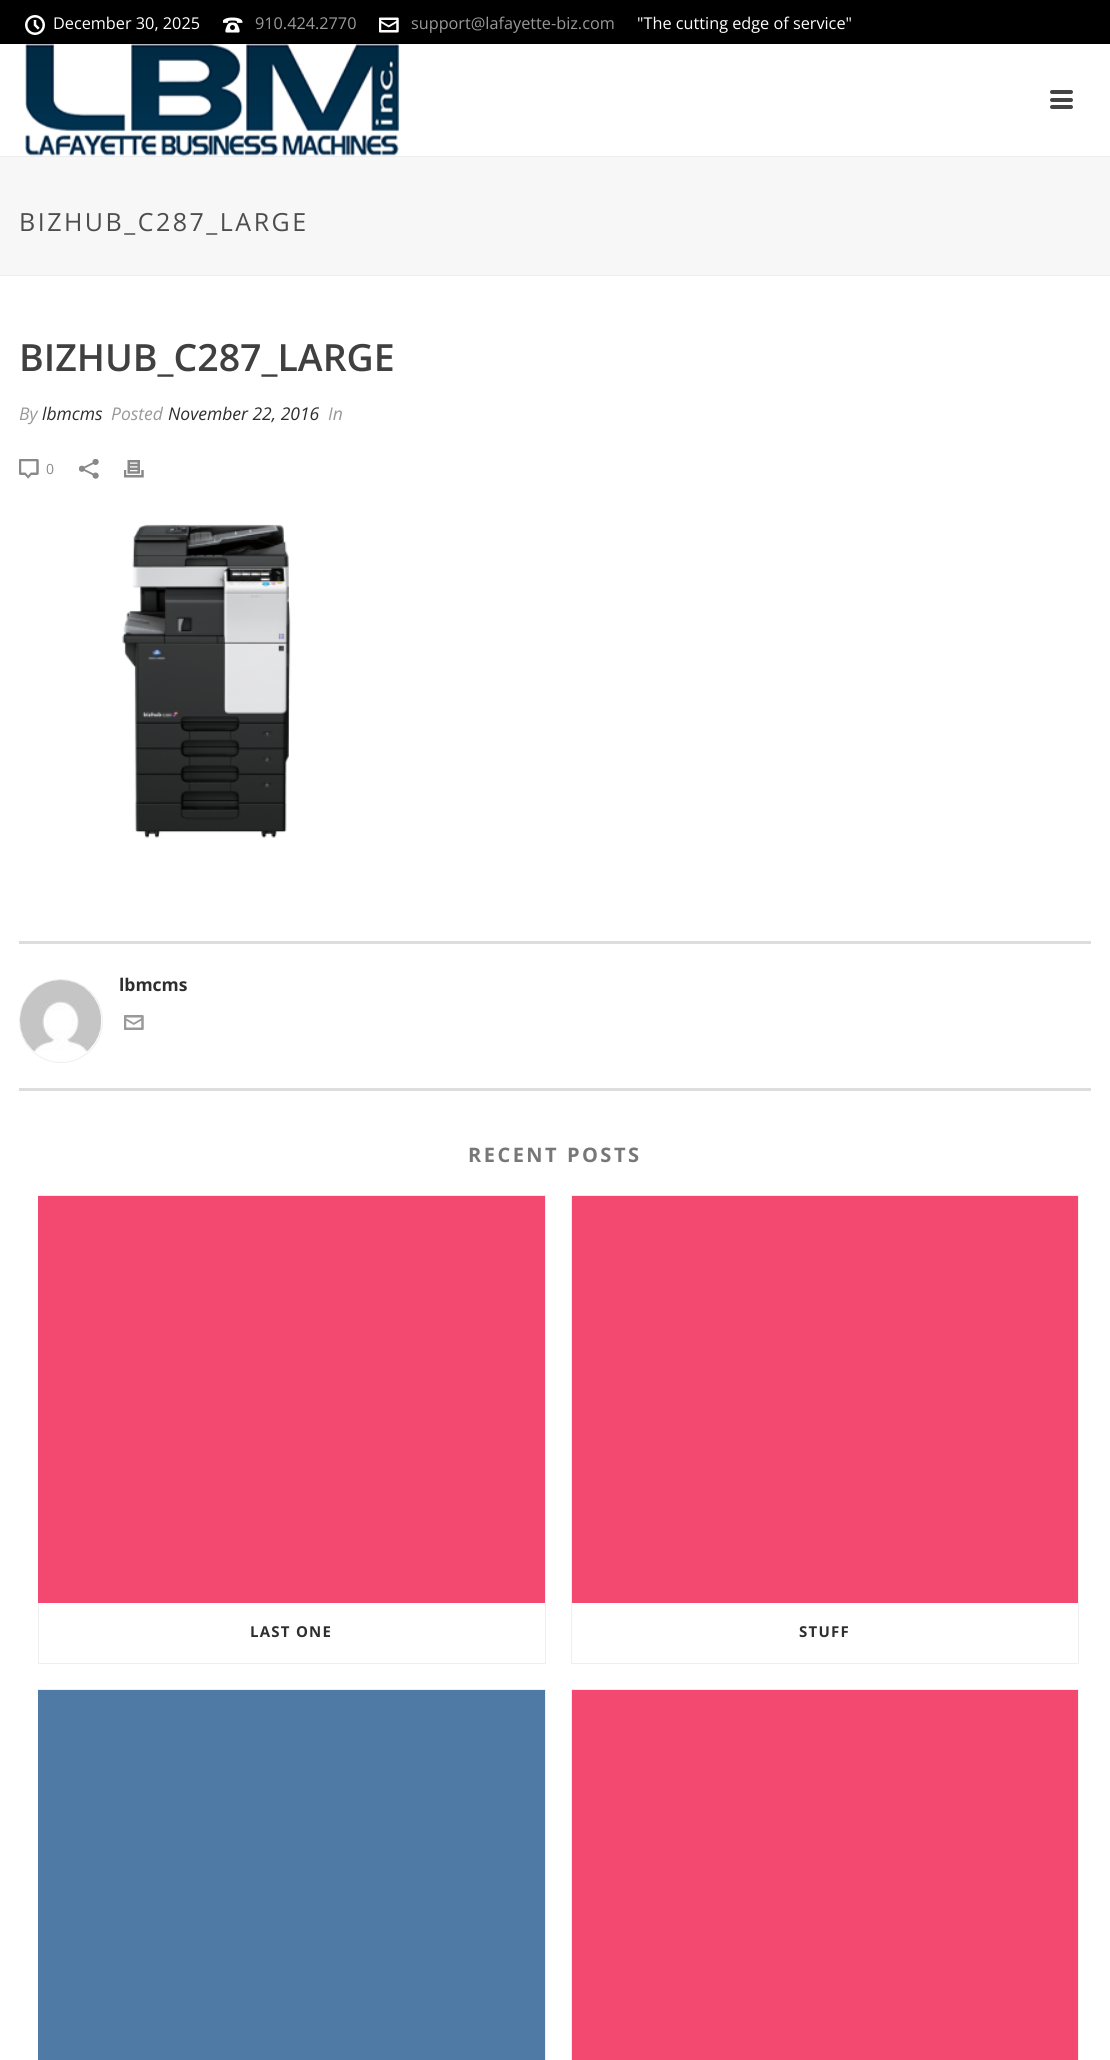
#include <cairo.h>
#include <math.h>
#include <stddef.h>

static cairo_t *ctx;

static void use_color(int r, int g, int b) {
    cairo_set_source_rgb(ctx, r / 255.0, g / 255.0, b / 255.0);
}

static void spaced_text(double x, double y, const char *s, double letter, double word) {
    cairo_move_to(ctx, x, y);
    while (*s) {
        char ch[5] = {0};
        int n = 0;
        do ch[n++] = *s++; while ((*s & 0xC0) == 0x80);
        cairo_show_text(ctx, ch);
        cairo_rel_move_to(ctx, letter + word * (*ch == ' '), 0);
    }
}

static void round_rect(double x, double y, double w, double h, double r) {
    cairo_new_sub_path(ctx);
    cairo_arc(ctx, x + w - r, y + h - r, r, 0, M_PI / 2);
    cairo_arc(ctx, x + r, y + h - r, r, M_PI / 2, M_PI);
    cairo_arc(ctx, x + r, y + r, r, M_PI, 1.5 * M_PI);
    cairo_arc(ctx, x + w - r, y + r, r, 1.5 * M_PI, 2 * M_PI);
    cairo_close_path(ctx);
}

static void picture(const char *path, double x, double y, double w, double h) {
    cairo_surface_t *image = cairo_image_surface_create_from_png(path);
    cairo_save(ctx);
    cairo_set_source_surface(ctx, image, x, y);
    cairo_rectangle(ctx, x, y, w, h);
    cairo_fill(ctx);
    cairo_restore(ctx);
    cairo_surface_destroy(image);
}

int main(void) {
    cairo_surface_t *surface = cairo_image_surface_create(CAIRO_FORMAT_RGB24, 1110, 2060);
    ctx = cairo_create(surface);
    cairo_font_options_t *options = cairo_font_options_create();
    cairo_font_options_set_hint_metrics(options, CAIRO_HINT_METRICS_OFF);
    cairo_font_options_set_hint_style(options, CAIRO_HINT_STYLE_NONE);
    cairo_set_font_options(ctx, options);
    cairo_set_miter_limit(ctx, 4);
    use_color(255, 255, 255);
    cairo_paint(ctx);
    use_color(247, 247, 247);
    cairo_rectangle(ctx, 0, 157, 1110, 118);
    cairo_fill(ctx);
    use_color(237, 237, 237);
    cairo_rectangle(ctx, 0, 275, 1110, 1);
    cairo_fill(ctx);
    use_color(0, 0, 0);
    cairo_rectangle(ctx, 0, 0, 1110, 44);
    cairo_fill(ctx);
    picture("img1.png", 25, 15, 20, 20);
    cairo_select_font_face(ctx, "Open Sans", CAIRO_FONT_SLANT_NORMAL, CAIRO_FONT_WEIGHT_NORMAL);
    cairo_set_font_size(ctx, 16.25);
    use_color(255, 255, 255);
    cairo_move_to(ctx, 53, 29);
    cairo_show_text(ctx, "December 30, 2025");
    picture("img2.png", 223, 17, 20, 16);
    use_color(153, 153, 153);
    cairo_move_to(ctx, 255, 29);
    cairo_show_text(ctx, "910.424.2770");
    picture("img3.png", 379, 17, 20, 16);
    cairo_move_to(ctx, 411, 29);
    cairo_show_text(ctx, "support@lafayette-biz.com");
    use_color(255, 255, 255);
    cairo_move_to(ctx, 637, 29);
    cairo_show_text(ctx, "\"The cutting edge of service\"");
    use_color(237, 237, 237);
    cairo_rectangle(ctx, 0, 156, 1110, 1);
    cairo_fill(ctx);
    picture("img4.png", 25, 44, 375, 112);
    use_color(68, 68, 68);
    round_rect(1050, 90, 23, 4, 2);
    cairo_fill(ctx);
    round_rect(1050, 98, 23, 4, 2);
    cairo_fill(ctx);
    round_rect(1050, 105, 23, 4, 2);
    cairo_fill(ctx);
    cairo_set_font_size(ctx, 25);
    use_color(77, 77, 77);
    spaced_text(19, 231, "BIZHUB_C287_LARGE", 2.5, 0);
    cairo_select_font_face(ctx, "Open Sans SemiBold", CAIRO_FONT_SLANT_NORMAL, CAIRO_FONT_WEIGHT_NORMAL);
    cairo_set_font_size(ctx, 37.5);
    use_color(64, 64, 64);
    cairo_move_to(ctx, 19, 371);
    cairo_show_text(ctx, "BIZHUB_C287_LARGE");
    cairo_select_font_face(ctx, "Open Sans", CAIRO_FONT_SLANT_ITALIC, CAIRO_FONT_WEIGHT_NORMAL);
    cairo_set_font_size(ctx, 17.5);
    use_color(153, 153, 153);
    cairo_move_to(ctx, 19, 420);
    cairo_show_text(ctx, "By");
    use_color(46, 46, 46);
    cairo_move_to(ctx, 42, 420);
    cairo_show_text(ctx, "lbmcms");
    use_color(153, 153, 153);
    cairo_move_to(ctx, 111, 420);
    cairo_show_text(ctx, "Posted");
    use_color(46, 46, 46);
    cairo_move_to(ctx, 168, 420);
    cairo_show_text(ctx, "November 22, 2016");
    use_color(153, 153, 153);
    cairo_move_to(ctx, 328, 420);
    cairo_show_text(ctx, "In");
    picture("img5.png", 19, 459, 20, 20);
    cairo_select_font_face(ctx, "Open Sans", CAIRO_FONT_SLANT_NORMAL, CAIRO_FONT_WEIGHT_NORMAL);
    cairo_set_font_size(ctx, 14);
    use_color(137, 137, 137);
    cairo_move_to(ctx, 46, 474);
    cairo_show_text(ctx, "0");
    picture("img6.png", 79, 459, 20, 20);
    picture("img7.png", 124, 460, 20, 18);
    picture("img8.png", 122, 524, 169, 314);
    use_color(221, 221, 221);
    cairo_rectangle(ctx, 19, 941, 1072, 3);
    cairo_fill(ctx);
    cairo_rectangle(ctx, 19, 1088, 1072, 3);
    cairo_fill(ctx);
    cairo_arc(ctx, 61, 1021, 41.5, 0, 2 * M_PI);
    use_color(238, 238, 238);
    cairo_set_line_width(ctx, 1);
    cairo_stroke(ctx);
    picture("img9.png", 20, 980, 81, 72);
    cairo_select_font_face(ctx, "Open Sans", CAIRO_FONT_SLANT_NORMAL, CAIRO_FONT_WEIGHT_BOLD);
    cairo_set_font_size(ctx, 17.5);
    use_color(46, 46, 46);
    cairo_move_to(ctx, 119, 991);
    cairo_show_text(ctx, "lbmcms");
    picture("img10.png", 124, 1015, 20, 15);
    cairo_set_font_size(ctx, 20);
    use_color(119, 119, 119);
    spaced_text(468, 1162, "RECENT POSTS", 2.5, 0);
    cairo_rectangle(ctx, 38.5, 1195.5, 507, 468);
    use_color(239, 239, 239);
    cairo_stroke(ctx);
    use_color(243, 73, 112);
    cairo_rectangle(ctx, 38, 1196, 507, 407);
    cairo_fill(ctx);
    cairo_set_font_size(ctx, 15);
    use_color(46, 46, 46);
    spaced_text(250, 1637, "LAST ONE", 1.25, 0);
    cairo_rectangle(ctx, 571.5, 1195.5, 507, 468);
    use_color(239, 239, 239);
    cairo_stroke(ctx);
    use_color(243, 73, 112);
    cairo_rectangle(ctx, 572, 1196, 506, 407);
    cairo_fill(ctx);
    use_color(46, 46, 46);
    spaced_text(799, 1637, "STUFF", 1.25, 0);
    cairo_rectangle(ctx, 38.5, 1689.5, 507, 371);
    use_color(239, 239, 239);
    cairo_stroke(ctx);
    use_color(79, 122, 166);
    cairo_rectangle(ctx, 38, 1690, 507, 370);
    cairo_fill(ctx);
    cairo_rectangle(ctx, 571.5, 1689.5, 507, 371);
    use_color(239, 239, 239);
    cairo_stroke(ctx);
    use_color(243, 73, 112);
    cairo_rectangle(ctx, 572, 1690, 506, 370);
    cairo_fill(ctx);
    cairo_surface_write_to_png(surface, "result.png");
    cairo_font_options_destroy(options);
    cairo_destroy(ctx);
    cairo_surface_destroy(surface);
    return 0;
}
